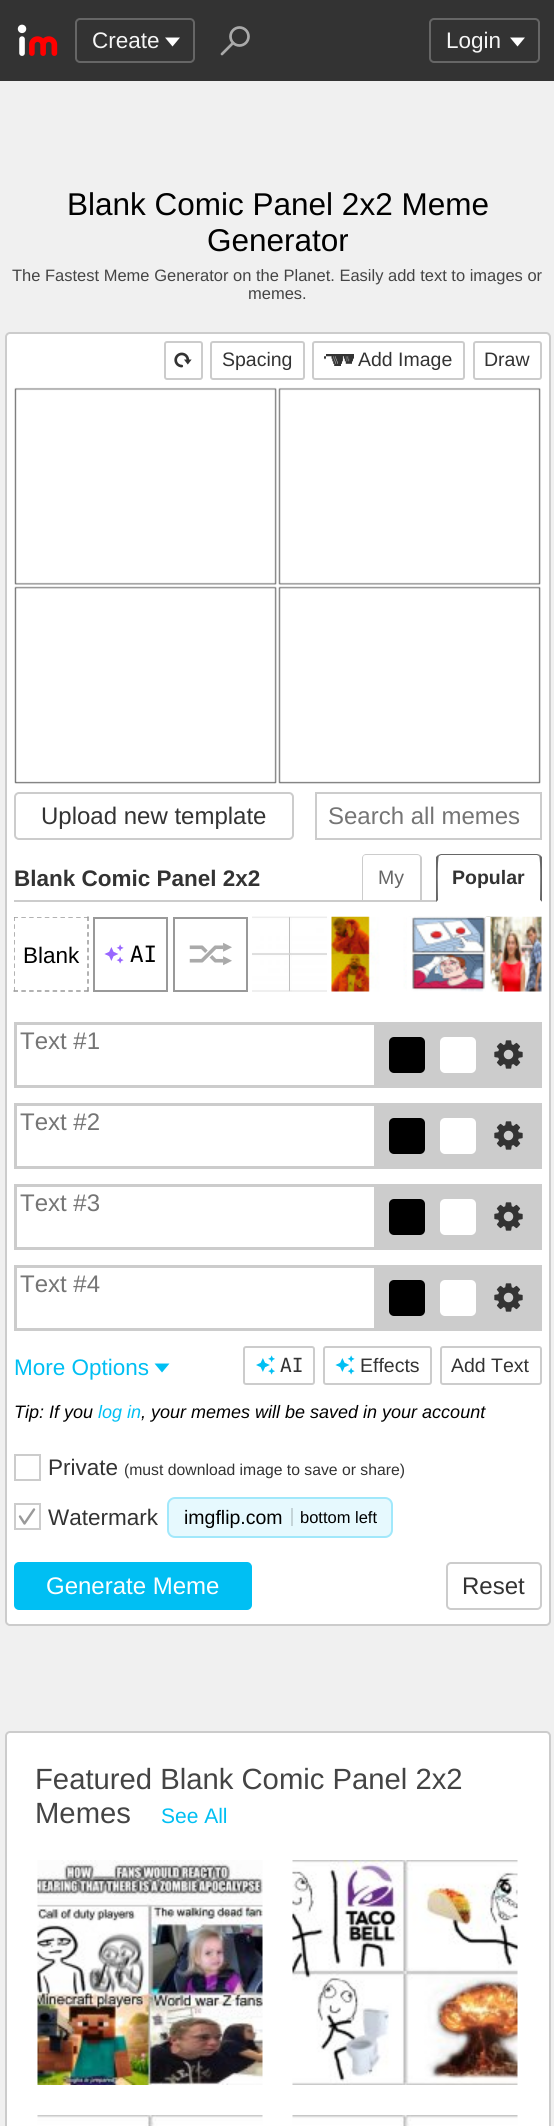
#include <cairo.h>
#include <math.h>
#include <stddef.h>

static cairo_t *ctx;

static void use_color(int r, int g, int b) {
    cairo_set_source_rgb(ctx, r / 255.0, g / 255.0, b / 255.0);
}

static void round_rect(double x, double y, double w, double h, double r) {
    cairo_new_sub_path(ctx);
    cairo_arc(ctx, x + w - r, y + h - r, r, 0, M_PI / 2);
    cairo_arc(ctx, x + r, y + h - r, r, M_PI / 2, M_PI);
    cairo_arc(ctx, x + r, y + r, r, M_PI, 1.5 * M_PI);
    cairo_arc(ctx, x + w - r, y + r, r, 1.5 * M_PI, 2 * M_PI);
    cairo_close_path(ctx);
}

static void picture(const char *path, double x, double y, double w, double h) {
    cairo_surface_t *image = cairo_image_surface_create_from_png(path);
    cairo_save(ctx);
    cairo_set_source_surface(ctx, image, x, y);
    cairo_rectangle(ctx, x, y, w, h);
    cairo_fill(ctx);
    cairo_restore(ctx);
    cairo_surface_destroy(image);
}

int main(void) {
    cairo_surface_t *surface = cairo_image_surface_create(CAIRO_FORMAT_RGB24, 554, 2126);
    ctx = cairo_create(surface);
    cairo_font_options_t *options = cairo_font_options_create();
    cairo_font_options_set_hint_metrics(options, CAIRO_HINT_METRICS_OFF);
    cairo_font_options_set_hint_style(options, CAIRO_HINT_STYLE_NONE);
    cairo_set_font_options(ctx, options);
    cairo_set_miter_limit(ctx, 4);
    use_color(240, 240, 240);
    cairo_paint(ctx);
    use_color(51, 51, 51);
    cairo_rectangle(ctx, 0, 0, 554, 81);
    cairo_fill(ctx);
    picture("img1.png", 17, 24, 41, 32);
    round_rect(76, 19, 118, 43, 4);
    use_color(102, 102, 102);
    cairo_stroke(ctx);
    cairo_select_font_face(ctx, "Liberation Sans", CAIRO_FONT_SLANT_NORMAL, CAIRO_FONT_WEIGHT_NORMAL);
    cairo_set_font_size(ctx, 22.5);
    use_color(245, 245, 245);
    cairo_move_to(ctx, 92, 48);
    cairo_show_text(ctx, "Create");
    use_color(255, 255, 255);
    cairo_new_path(ctx);
    cairo_move_to(ctx, 165, 37.5);
    cairo_line_to(ctx, 180, 37.5);
    cairo_line_to(ctx, 172.5, 46.5);
    cairo_close_path(ctx);
    cairo_fill(ctx);
    cairo_new_path(ctx);
    cairo_move_to(ctx, 222, 54);
    cairo_line_to(ctx, 233, 43);
    use_color(170, 170, 170);
    cairo_set_line_width(ctx, 2.7);
    cairo_set_line_cap(ctx, CAIRO_LINE_CAP_ROUND);
    cairo_stroke(ctx);
    cairo_arc(ctx, 239.5, 36.5, 9, 0, 2 * M_PI);
    cairo_set_line_cap(ctx, CAIRO_LINE_CAP_BUTT);
    cairo_stroke(ctx);
    round_rect(430, 19, 109, 43, 4);
    use_color(102, 102, 102);
    cairo_set_line_width(ctx, 2);
    cairo_stroke(ctx);
    use_color(245, 245, 245);
    cairo_move_to(ctx, 446, 48);
    cairo_show_text(ctx, "Login");
    use_color(255, 255, 255);
    cairo_new_path(ctx);
    cairo_move_to(ctx, 510, 37.5);
    cairo_line_to(ctx, 525, 37.5);
    cairo_line_to(ctx, 517.5, 46.5);
    cairo_close_path(ctx);
    cairo_fill(ctx);
    cairo_set_font_size(ctx, 31.5);
    use_color(0, 0, 0);
    cairo_move_to(ctx, 67, 215);
    cairo_show_text(ctx, "Blank Comic Panel 2x2 Meme");
    cairo_move_to(ctx, 207, 251);
    cairo_show_text(ctx, "Generator");
    cairo_set_font_size(ctx, 16.5);
    use_color(68, 68, 68);
    cairo_move_to(ctx, 12, 281);
    cairo_show_text(ctx, "The Fastest Meme Generator on the Planet. Easily add text to images or");
    cairo_move_to(ctx, 248, 299);
    cairo_show_text(ctx, "memes.");
    use_color(255, 255, 255);
    round_rect(6, 333, 544, 1292, 4);
    cairo_fill_preserve(ctx);
    use_color(204, 204, 204);
    cairo_stroke(ctx);
    round_rect(165, 342, 37, 37, 2);
    cairo_stroke(ctx);
    picture("img2.png", 174, 352, 18, 16);
    round_rect(211, 342, 93, 37, 2);
    cairo_stroke(ctx);
    cairo_set_font_size(ctx, 19.5);
    use_color(51, 51, 51);
    cairo_move_to(ctx, 222, 366);
    cairo_show_text(ctx, "Spacing");
    round_rect(313, 342, 151, 37, 2);
    use_color(204, 204, 204);
    cairo_stroke(ctx);
    picture("img3.png", 324, 354, 30, 12);
    use_color(51, 51, 51);
    cairo_move_to(ctx, 358, 366);
    cairo_show_text(ctx, "Add Image");
    round_rect(474, 342, 67, 37, 2);
    use_color(204, 204, 204);
    cairo_stroke(ctx);
    use_color(51, 51, 51);
    cairo_move_to(ctx, 484, 366);
    cairo_show_text(ctx, "Draw");
    picture("img4.png", 14, 387, 527, 397);
    round_rect(15, 793, 278, 46, 4);
    use_color(204, 204, 204);
    cairo_stroke(ctx);
    cairo_set_font_size(ctx, 24);
    use_color(51, 51, 51);
    cairo_move_to(ctx, 41, 824);
    cairo_show_text(ctx, "Upload new template");
    cairo_rectangle(ctx, 316, 793, 225, 46);
    use_color(204, 204, 204);
    cairo_stroke(ctx);
    use_color(117, 117, 117);
    cairo_move_to(ctx, 328, 824);
    cairo_show_text(ctx, "Search all memes");
    use_color(204, 204, 204);
    cairo_rectangle(ctx, 14, 900, 528, 2);
    cairo_fill(ctx);
    cairo_select_font_face(ctx, "Liberation Sans", CAIRO_FONT_SLANT_NORMAL, CAIRO_FONT_WEIGHT_BOLD);
    cairo_set_font_size(ctx, 22.5);
    use_color(51, 51, 51);
    cairo_move_to(ctx, 14, 886);
    cairo_show_text(ctx, "Blank Comic Panel 2x2");
    use_color(204, 204, 204);
    cairo_set_fill_rule(ctx, CAIRO_FILL_RULE_EVEN_ODD);
    cairo_new_path(ctx);
    cairo_move_to(ctx, 366, 854);
    cairo_line_to(ctx, 417, 854);
    cairo_curve_to(ctx, 419, 854, 422, 856, 422, 858);
    cairo_line_to(ctx, 422, 902);
    cairo_line_to(ctx, 362, 902);
    cairo_line_to(ctx, 362, 858);
    cairo_curve_to(ctx, 362, 856, 364, 854, 366, 854);
    cairo_close_path(ctx);
    cairo_move_to(ctx, 366, 855);
    cairo_line_to(ctx, 417, 855);
    cairo_curve_to(ctx, 419, 855, 420, 856, 420, 858);
    cairo_line_to(ctx, 420, 902);
    cairo_line_to(ctx, 363, 902);
    cairo_line_to(ctx, 363, 858);
    cairo_curve_to(ctx, 363, 856, 364, 855, 366, 855);
    cairo_close_path(ctx);
    cairo_fill(ctx);
    cairo_select_font_face(ctx, "Liberation Sans", CAIRO_FONT_SLANT_NORMAL, CAIRO_FONT_WEIGHT_NORMAL);
    cairo_set_font_size(ctx, 19.5);
    use_color(102, 102, 102);
    cairo_move_to(ctx, 378, 884);
    cairo_show_text(ctx, "My");
    cairo_set_fill_rule(ctx, CAIRO_FILL_RULE_WINDING);
    cairo_new_path(ctx);
    cairo_move_to(ctx, 441, 854);
    cairo_line_to(ctx, 438, 855);
    cairo_line_to(ctx, 439, 856);
    cairo_line_to(ctx, 441, 855);
    cairo_line_to(ctx, 537, 855);
    cairo_line_to(ctx, 539, 856);
    cairo_line_to(ctx, 540, 855);
    cairo_line_to(ctx, 537, 854);
    cairo_close_path(ctx);
    cairo_fill(ctx);
    cairo_new_path(ctx);
    cairo_move_to(ctx, 542, 857);
    cairo_line_to(ctx, 540, 855);
    cairo_line_to(ctx, 539, 856);
    cairo_curve_to(ctx, 541, 858, 540, 895, 540, 900);
    cairo_line_to(ctx, 542, 902);
    cairo_close_path(ctx);
    cairo_fill(ctx);
    use_color(255, 255, 255);
    cairo_new_path(ctx);
    cairo_move_to(ctx, 542, 902);
    cairo_line_to(ctx, 540, 900);
    cairo_line_to(ctx, 438, 900);
    cairo_line_to(ctx, 436, 902);
    cairo_close_path(ctx);
    cairo_fill(ctx);
    use_color(102, 102, 102);
    cairo_new_path(ctx);
    cairo_move_to(ctx, 436, 902);
    cairo_line_to(ctx, 438, 900);
    cairo_curve_to(ctx, 438, 895, 437, 858, 439, 856);
    cairo_line_to(ctx, 438, 855);
    cairo_line_to(ctx, 436, 857);
    cairo_close_path(ctx);
    cairo_fill(ctx);
    cairo_select_font_face(ctx, "Liberation Sans", CAIRO_FONT_SLANT_NORMAL, CAIRO_FONT_WEIGHT_BOLD);
    use_color(51, 51, 51);
    cairo_move_to(ctx, 452, 884);
    cairo_show_text(ctx, "Popular");
    cairo_save(ctx);
    cairo_rectangle(ctx, 14, 917, 528, 105);
    cairo_clip(ctx);
    cairo_new_path(ctx);
    cairo_move_to(ctx, 13.5, 917);
    cairo_line_to(ctx, 88.5, 917);
    use_color(153, 153, 153);
    cairo_set_line_width(ctx, 1.5);
    cairo_set_dash(ctx, (double[]){4.5, 3.33}, 2, 0);
    cairo_stroke(ctx);
    cairo_restore(ctx);
    cairo_new_path(ctx);
    cairo_move_to(ctx, 88, 916.5);
    cairo_line_to(ctx, 88, 991.5);
    use_color(153, 153, 153);
    cairo_set_line_width(ctx, 1.5);
    cairo_set_dash(ctx, (double[]){4.5, 3.33}, 2, 0);
    cairo_stroke(ctx);
    cairo_new_path(ctx);
    cairo_move_to(ctx, 13.5, 991);
    cairo_line_to(ctx, 88.5, 991);
    cairo_stroke(ctx);
    cairo_save(ctx);
    cairo_rectangle(ctx, 14, 917, 528, 105);
    cairo_clip(ctx);
    cairo_new_path(ctx);
    cairo_move_to(ctx, 14, 916.5);
    cairo_line_to(ctx, 14, 991.5);
    cairo_stroke(ctx);
    cairo_restore(ctx);
    cairo_select_font_face(ctx, "Liberation Sans", CAIRO_FONT_SLANT_NORMAL, CAIRO_FONT_WEIGHT_NORMAL);
    cairo_set_font_size(ctx, 22.5);
    use_color(0, 0, 0);
    cairo_move_to(ctx, 23, 963);
    cairo_show_text(ctx, "Blank");
    cairo_rectangle(ctx, 94, 918, 73, 73);
    use_color(153, 153, 153);
    cairo_set_line_width(ctx, 2);
    cairo_set_dash(ctx, NULL, 0, 0);
    cairo_stroke(ctx);
    picture("img5.png", 104, 944, 20, 20);
    cairo_select_font_face(ctx, "DejaVu Sans Mono", CAIRO_FONT_SLANT_NORMAL, CAIRO_FONT_WEIGHT_NORMAL);
    use_color(0, 0, 0);
    cairo_move_to(ctx, 130, 962);
    cairo_show_text(ctx, "AI");
    cairo_rectangle(ctx, 174, 918, 73, 73);
    use_color(153, 153, 153);
    cairo_stroke(ctx);
    picture("img6.png", 189, 942, 43, 24);
    picture("img7.png", 252, 916, 75, 76);
    picture("img8.png", 331, 916, 80, 76);
    use_color(255, 255, 255);
    cairo_rectangle(ctx, 407, 917, 4, 75);
    cairo_fill(ctx);
    picture("img9.png", 411, 916, 80, 76);
    cairo_rectangle(ctx, 486, 917, 5, 75);
    cairo_fill(ctx);
    picture("img10.png", 490, 916, 52, 76);
    cairo_rectangle(ctx, 15.5, 1023.5, 360, 63);
    use_color(204, 204, 204);
    cairo_set_line_width(ctx, 3);
    cairo_stroke(ctx);
    cairo_select_font_face(ctx, "Liberation Sans", CAIRO_FONT_SLANT_NORMAL, CAIRO_FONT_WEIGHT_NORMAL);
    cairo_set_font_size(ctx, 24);
    use_color(117, 117, 117);
    cairo_move_to(ctx, 20, 1049);
    cairo_show_text(ctx, "Text #1");
    use_color(204, 204, 204);
    cairo_rectangle(ctx, 377, 1022, 165, 66);
    cairo_fill(ctx);
    use_color(0, 0, 0);
    round_rect(389, 1037, 36, 36, 5);
    cairo_fill(ctx);
    use_color(255, 255, 255);
    round_rect(440, 1037, 36, 36, 5);
    cairo_fill(ctx);
    picture("img11.png", 494, 1040, 29, 29);
    cairo_rectangle(ctx, 15.5, 1104.5, 360, 63);
    use_color(204, 204, 204);
    cairo_stroke(ctx);
    use_color(117, 117, 117);
    cairo_move_to(ctx, 20, 1130);
    cairo_show_text(ctx, "Text #2");
    use_color(204, 204, 204);
    cairo_rectangle(ctx, 377, 1103, 165, 66);
    cairo_fill(ctx);
    use_color(0, 0, 0);
    round_rect(389, 1118, 36, 36, 5);
    cairo_fill(ctx);
    use_color(255, 255, 255);
    round_rect(440, 1118, 36, 36, 5);
    cairo_fill(ctx);
    picture("img11.png", 494, 1121, 29, 29);
    cairo_rectangle(ctx, 15.5, 1185.5, 360, 63);
    use_color(204, 204, 204);
    cairo_stroke(ctx);
    use_color(117, 117, 117);
    cairo_move_to(ctx, 20, 1211);
    cairo_show_text(ctx, "Text #3");
    use_color(204, 204, 204);
    cairo_rectangle(ctx, 377, 1184, 165, 66);
    cairo_fill(ctx);
    use_color(0, 0, 0);
    round_rect(389, 1199, 36, 36, 5);
    cairo_fill(ctx);
    use_color(255, 255, 255);
    round_rect(440, 1199, 36, 36, 5);
    cairo_fill(ctx);
    picture("img11.png", 494, 1202, 29, 29);
    cairo_rectangle(ctx, 15.5, 1266.5, 360, 63);
    use_color(204, 204, 204);
    cairo_stroke(ctx);
    use_color(117, 117, 117);
    cairo_move_to(ctx, 20, 1292);
    cairo_show_text(ctx, "Text #4");
    use_color(204, 204, 204);
    cairo_rectangle(ctx, 377, 1265, 165, 66);
    cairo_fill(ctx);
    use_color(0, 0, 0);
    round_rect(389, 1280, 36, 36, 5);
    cairo_fill(ctx);
    use_color(255, 255, 255);
    round_rect(440, 1280, 36, 36, 5);
    cairo_fill(ctx);
    picture("img11.png", 494, 1283, 29, 29);
    cairo_set_font_size(ctx, 22.5);
    use_color(0, 191, 243);
    cairo_move_to(ctx, 14, 1375);
    cairo_show_text(ctx, "More Options");
    cairo_new_path(ctx);
    cairo_move_to(ctx, 154.5, 1363.5);
    cairo_line_to(ctx, 169.5, 1363.5);
    cairo_line_to(ctx, 162, 1372.5);
    cairo_close_path(ctx);
    cairo_fill(ctx);
    round_rect(244, 1347, 70, 37, 2);
    use_color(204, 204, 204);
    cairo_set_line_width(ctx, 2);
    cairo_stroke(ctx);
    picture("img12.png", 256, 1355, 19, 20);
    cairo_select_font_face(ctx, "DejaVu Sans Mono", CAIRO_FONT_SLANT_NORMAL, CAIRO_FONT_WEIGHT_NORMAL);
    cairo_set_font_size(ctx, 19.5);
    use_color(51, 51, 51);
    cairo_move_to(ctx, 280, 1372);
    cairo_show_text(ctx, "AI");
    round_rect(324, 1347, 107, 37, 2);
    use_color(204, 204, 204);
    cairo_stroke(ctx);
    picture("img13.png", 335, 1355, 20, 20);
    cairo_select_font_face(ctx, "Liberation Sans", CAIRO_FONT_SLANT_NORMAL, CAIRO_FONT_WEIGHT_NORMAL);
    use_color(51, 51, 51);
    cairo_move_to(ctx, 360, 1372);
    cairo_show_text(ctx, "Effects");
    round_rect(441, 1347, 100, 37, 2);
    use_color(204, 204, 204);
    cairo_stroke(ctx);
    use_color(51, 51, 51);
    cairo_move_to(ctx, 451, 1372);
    cairo_show_text(ctx, "Add Text");
    cairo_select_font_face(ctx, "Liberation Sans", CAIRO_FONT_SLANT_ITALIC, CAIRO_FONT_WEIGHT_NORMAL);
    cairo_set_font_size(ctx, 18);
    use_color(0, 0, 0);
    cairo_move_to(ctx, 14, 1418);
    cairo_show_text(ctx, "Tip: If you");
    use_color(0, 191, 243);
    cairo_move_to(ctx, 98, 1418);
    cairo_show_text(ctx, "log in");
    use_color(0, 0, 0);
    cairo_move_to(ctx, 141, 1418);
    cairo_show_text(ctx, ", your memes will be saved in your account");
    cairo_rectangle(ctx, 15, 1455, 25, 25);
    use_color(204, 204, 204);
    cairo_stroke(ctx);
    cairo_select_font_face(ctx, "Liberation Sans", CAIRO_FONT_SLANT_NORMAL, CAIRO_FONT_WEIGHT_NORMAL);
    cairo_set_font_size(ctx, 22.5);
    use_color(51, 51, 51);
    cairo_move_to(ctx, 48, 1475);
    cairo_show_text(ctx, "Private");
    cairo_set_font_size(ctx, 15.75);
    cairo_move_to(ctx, 124, 1475);
    cairo_show_text(ctx, "(must download image to save or share)");
    cairo_rectangle(ctx, 15, 1504, 25, 25);
    use_color(204, 204, 204);
    cairo_stroke(ctx);
    cairo_new_path(ctx);
    cairo_move_to(ctx, 20, 1516.5);
    cairo_line_to(ctx, 24.5, 1523.5);
    cairo_line_to(ctx, 34, 1509.5);
    use_color(153, 153, 153);
    cairo_set_line_width(ctx, 2.4);
    cairo_set_line_cap(ctx, CAIRO_LINE_CAP_ROUND);
    cairo_set_line_join(ctx, CAIRO_LINE_JOIN_ROUND);
    cairo_stroke(ctx);
    cairo_set_font_size(ctx, 22.5);
    use_color(51, 51, 51);
    cairo_move_to(ctx, 48, 1525);
    cairo_show_text(ctx, "Watermark");
    use_color(230, 249, 254);
    round_rect(167, 1497, 226, 41, 8);
    cairo_fill(ctx);
    round_rect(168, 1498, 224, 39, 7);
    cairo_set_source_rgba(ctx, 0, 0.749, 0.953, 0.3);
    cairo_set_line_width(ctx, 2);
    cairo_set_line_cap(ctx, CAIRO_LINE_CAP_BUTT);
    cairo_set_line_join(ctx, CAIRO_LINE_JOIN_MITER);
    cairo_stroke(ctx);
    cairo_set_font_size(ctx, 19.5);
    use_color(0, 0, 0);
    cairo_move_to(ctx, 184, 1524);
    cairo_show_text(ctx, "imgflip.com");
    use_color(196, 212, 216);
    cairo_rectangle(ctx, 291, 1508, 2, 18);
    cairo_fill(ctx);
    cairo_set_font_size(ctx, 16.5);
    use_color(0, 0, 0);
    cairo_move_to(ctx, 300, 1523);
    cairo_show_text(ctx, "bottom left");
    use_color(0, 191, 243);
    round_rect(15, 1563, 236, 46, 4);
    cairo_fill_preserve(ctx);
    cairo_stroke(ctx);
    cairo_set_font_size(ctx, 24);
    use_color(255, 255, 255);
    cairo_move_to(ctx, 46, 1594);
    cairo_show_text(ctx, "Generate Meme");
    round_rect(447, 1563, 94, 46, 4);
    use_color(204, 204, 204);
    cairo_stroke(ctx);
    use_color(51, 51, 51);
    cairo_move_to(ctx, 462, 1594);
    cairo_show_text(ctx, "Reset");
    use_color(255, 255, 255);
    round_rect(6, 1732, 544, 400, 4);
    cairo_fill_preserve(ctx);
    use_color(204, 204, 204);
    cairo_stroke(ctx);
    cairo_set_font_size(ctx, 29.25);
    use_color(68, 68, 68);
    cairo_move_to(ctx, 35, 1789);
    cairo_show_text(ctx, "Featured Blank Comic Panel 2x2");
    cairo_move_to(ctx, 35, 1823);
    cairo_show_text(ctx, "Memes");
    cairo_set_font_size(ctx, 21);
    use_color(0, 191, 243);
    cairo_move_to(ctx, 161, 1823);
    cairo_show_text(ctx, "See All");
    picture("img14.png", 37, 1860, 226, 225);
    picture("img15.png", 292, 1860, 226, 225);
    picture("img16.png", 37, 2115, 226, 11);
    picture("img17.png", 292, 2115, 226, 11);
    cairo_surface_write_to_png(surface, "result.png");
    cairo_font_options_destroy(options);
    cairo_destroy(ctx);
    cairo_surface_destroy(surface);
    return 0;
}
